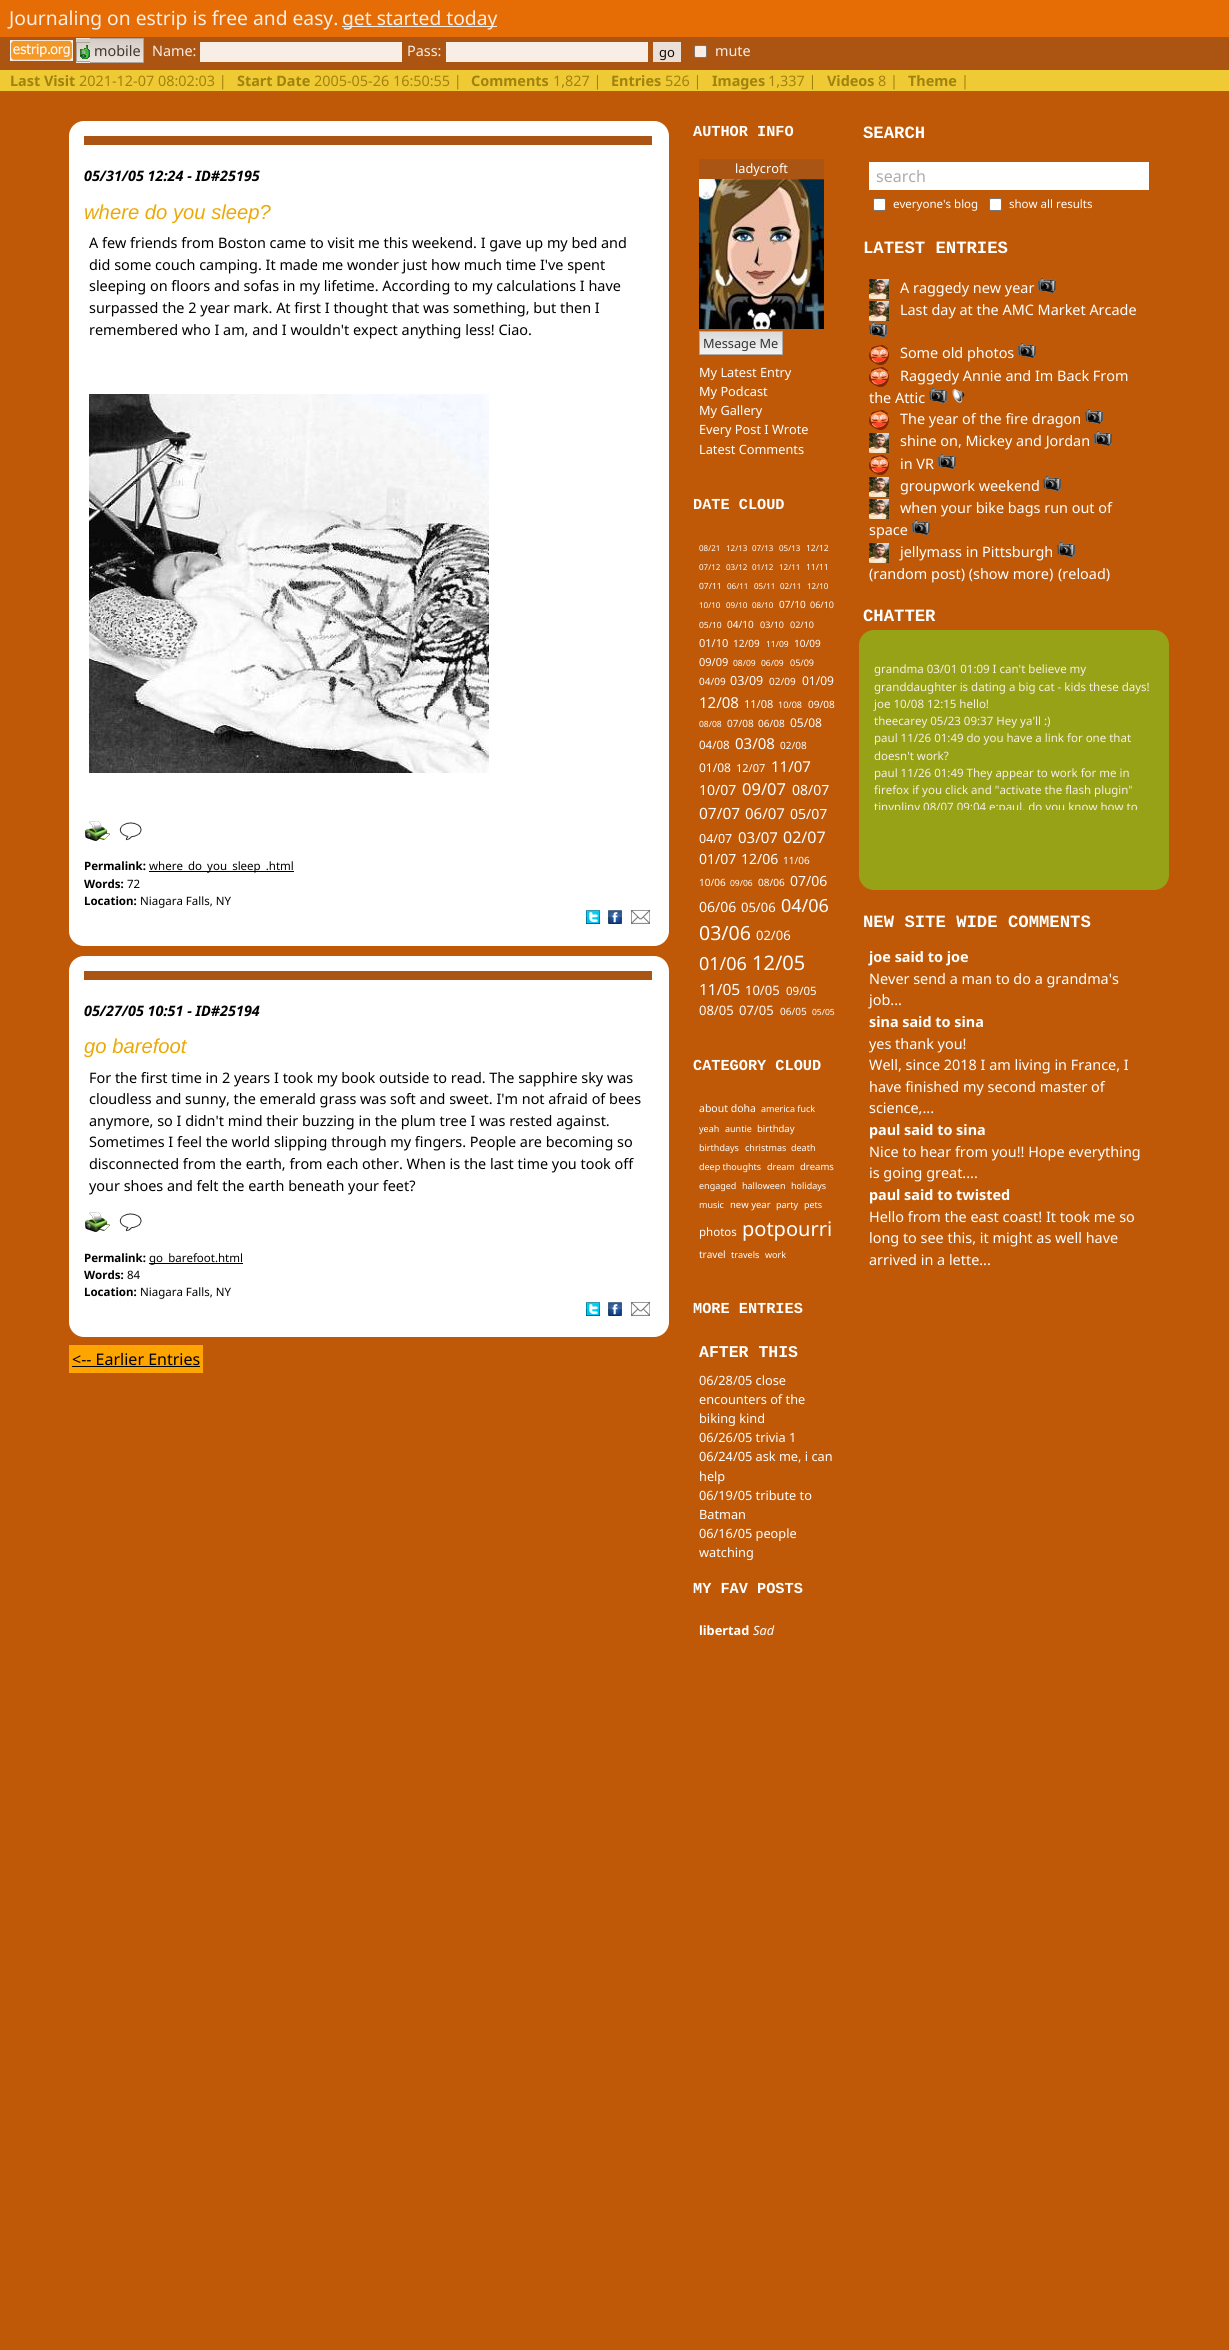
#include <cairo.h>
#include <math.h>
#include <stddef.h>

static cairo_t *ctx;

static void use_color(int r, int g, int b) {
    cairo_set_source_rgb(ctx, r / 255.0, g / 255.0, b / 255.0);
}

static void round_rect(double x, double y, double w, double h, double r) {
    cairo_new_sub_path(ctx);
    cairo_arc(ctx, x + w - r, y + h - r, r, 0, M_PI / 2);
    cairo_arc(ctx, x + r, y + h - r, r, M_PI / 2, M_PI);
    cairo_arc(ctx, x + r, y + r, r, M_PI, 1.5 * M_PI);
    cairo_arc(ctx, x + w - r, y + r, r, 1.5 * M_PI, 2 * M_PI);
    cairo_close_path(ctx);
}

static void picture(const char *path, double x, double y, double w, double h) {
    cairo_surface_t *image = cairo_image_surface_create_from_png(path);
    cairo_save(ctx);
    cairo_set_source_surface(ctx, image, x, y);
    cairo_rectangle(ctx, x, y, w, h);
    cairo_fill(ctx);
    cairo_restore(ctx);
    cairo_surface_destroy(image);
}

int main(void) {
    cairo_surface_t *surface = cairo_image_surface_create(CAIRO_FORMAT_RGB24, 1229, 2350);
    ctx = cairo_create(surface);
    cairo_font_options_t *options = cairo_font_options_create();
    cairo_font_options_set_hint_metrics(options, CAIRO_HINT_METRICS_OFF);
    cairo_font_options_set_hint_style(options, CAIRO_HINT_STYLE_NONE);
    cairo_set_font_options(ctx, options);
    cairo_set_miter_limit(ctx, 4);
    use_color(191, 89, 7);
    cairo_paint(ctx);
    use_color(230, 109, 6);
    cairo_rectangle(ctx, 0, 0, 1229, 37);
    cairo_fill(ctx);
    cairo_select_font_face(ctx, "Noto Sans", CAIRO_FONT_SLANT_NORMAL, CAIRO_FONT_WEIGHT_NORMAL);
    cairo_set_font_size(ctx, 19.25);
    use_color(249, 238, 230);
    cairo_move_to(ctx, 9, 25);
    cairo_show_text(ctx, "Journaling on estrip is free and easy.");
    cairo_rectangle(ctx, 342, 26, 155, 1);
    cairo_fill(ctx);
    cairo_move_to(ctx, 342, 25);
    cairo_show_text(ctx, "get started today");
    use_color(172, 85, 18);
    cairo_rectangle(ctx, 0, 37, 1229, 33);
    cairo_fill(ctx);
    picture("img3.png", 10, 41, 63, 19);
    picture("img1.png", 10, 40, 63, 21);
    picture("img2.png", 76, 38, 67, 25);
    picture("img4.png", 80, 45, 10, 14);
    cairo_set_font_size(ctx, 14.4);
    use_color(65, 55, 47);
    cairo_move_to(ctx, 94, 56);
    cairo_show_text(ctx, "mobile");
    use_color(174, 164, 156);
    cairo_rectangle(ctx, 76, 42, 14, 1);
    cairo_fill(ctx);
    cairo_rectangle(ctx, 76, 61, 14, 1);
    cairo_fill(ctx);
    cairo_rectangle(ctx, 76, 42, 1, 20);
    cairo_fill(ctx);
    cairo_rectangle(ctx, 90, 38, 54, 1);
    cairo_fill(ctx);
    cairo_rectangle(ctx, 143, 38, 1, 25);
    cairo_fill(ctx);
    cairo_rectangle(ctx, 90, 62, 54, 1);
    cairo_fill(ctx);
    use_color(249, 238, 230);
    cairo_move_to(ctx, 152, 56);
    cairo_show_text(ctx, "Name:");
    cairo_rectangle(ctx, 200, 42, 202, 20);
    cairo_fill(ctx);
    cairo_move_to(ctx, 407, 56);
    cairo_show_text(ctx, "Pass:");
    cairo_rectangle(ctx, 446, 42, 202, 20);
    cairo_fill(ctx);
    use_color(234, 224, 216);
    cairo_rectangle(ctx, 653, 42, 28, 20);
    cairo_fill(ctx);
    cairo_set_font_size(ctx, 13);
    use_color(19, 9, 1);
    cairo_move_to(ctx, 659, 57);
    cairo_show_text(ctx, "go");
    use_color(249, 238, 230);
    round_rect(694.5, 45.5, 12, 12, 1.5);
    cairo_fill_preserve(ctx);
    use_color(125, 115, 107);
    cairo_set_line_width(ctx, 1);
    cairo_stroke(ctx);
    cairo_set_font_size(ctx, 14.4);
    use_color(249, 238, 230);
    cairo_move_to(ctx, 715, 56);
    cairo_show_text(ctx, "mute");
    use_color(239, 202, 53);
    cairo_rectangle(ctx, 0, 70, 1229, 21);
    cairo_fill(ctx);
    cairo_select_font_face(ctx, "Noto Sans", CAIRO_FONT_SLANT_NORMAL, CAIRO_FONT_WEIGHT_BOLD);
    use_color(160, 130, 15);
    cairo_move_to(ctx, 10, 86);
    cairo_show_text(ctx, "Last Visit");
    cairo_select_font_face(ctx, "Noto Sans", CAIRO_FONT_SLANT_NORMAL, CAIRO_FONT_WEIGHT_NORMAL);
    cairo_move_to(ctx, 79, 86);
    cairo_show_text(ctx, "2021-12-07 08:02:03 |");
    cairo_select_font_face(ctx, "Noto Sans", CAIRO_FONT_SLANT_NORMAL, CAIRO_FONT_WEIGHT_BOLD);
    cairo_move_to(ctx, 237, 86);
    cairo_show_text(ctx, "Start Date");
    cairo_select_font_face(ctx, "Noto Sans", CAIRO_FONT_SLANT_NORMAL, CAIRO_FONT_WEIGHT_NORMAL);
    cairo_move_to(ctx, 314, 86);
    cairo_show_text(ctx, "2005-05-26 16:50:55 |");
    cairo_select_font_face(ctx, "Noto Sans", CAIRO_FONT_SLANT_NORMAL, CAIRO_FONT_WEIGHT_BOLD);
    cairo_move_to(ctx, 471, 86);
    cairo_show_text(ctx, "Comments");
    cairo_select_font_face(ctx, "Noto Sans", CAIRO_FONT_SLANT_NORMAL, CAIRO_FONT_WEIGHT_NORMAL);
    cairo_move_to(ctx, 553, 86);
    cairo_show_text(ctx, "1,827 |");
    cairo_select_font_face(ctx, "Noto Sans", CAIRO_FONT_SLANT_NORMAL, CAIRO_FONT_WEIGHT_BOLD);
    cairo_move_to(ctx, 611, 86);
    cairo_show_text(ctx, "Entries");
    cairo_select_font_face(ctx, "Noto Sans", CAIRO_FONT_SLANT_NORMAL, CAIRO_FONT_WEIGHT_NORMAL);
    cairo_move_to(ctx, 665, 86);
    cairo_show_text(ctx, "526 |");
    cairo_select_font_face(ctx, "Noto Sans", CAIRO_FONT_SLANT_NORMAL, CAIRO_FONT_WEIGHT_BOLD);
    cairo_move_to(ctx, 712, 86);
    cairo_show_text(ctx, "Images");
    cairo_select_font_face(ctx, "Noto Sans", CAIRO_FONT_SLANT_NORMAL, CAIRO_FONT_WEIGHT_NORMAL);
    cairo_move_to(ctx, 768, 86);
    cairo_show_text(ctx, "1,337 |");
    cairo_select_font_face(ctx, "Noto Sans", CAIRO_FONT_SLANT_NORMAL, CAIRO_FONT_WEIGHT_BOLD);
    cairo_move_to(ctx, 827, 86);
    cairo_show_text(ctx, "Videos");
    cairo_select_font_face(ctx, "Noto Sans", CAIRO_FONT_SLANT_NORMAL, CAIRO_FONT_WEIGHT_NORMAL);
    cairo_move_to(ctx, 878, 86);
    cairo_show_text(ctx, "8 |");
    cairo_select_font_face(ctx, "Noto Sans", CAIRO_FONT_SLANT_NORMAL, CAIRO_FONT_WEIGHT_BOLD);
    cairo_move_to(ctx, 908, 86);
    cairo_show_text(ctx, "Theme");
    cairo_select_font_face(ctx, "Noto Sans", CAIRO_FONT_SLANT_NORMAL, CAIRO_FONT_WEIGHT_NORMAL);
    cairo_move_to(ctx, 961, 86);
    cairo_show_text(ctx, "|");
    use_color(255, 255, 255);
    round_rect(69, 121, 600, 825, 15);
    cairo_fill(ctx);
    use_color(170, 85, 19);
    cairo_rectangle(ctx, 84, 136, 568, 9);
    cairo_fill(ctx);
    cairo_select_font_face(ctx, "Noto Sans", CAIRO_FONT_SLANT_ITALIC, CAIRO_FONT_WEIGHT_BOLD);
    use_color(0, 0, 0);
    cairo_move_to(ctx, 84, 181);
    cairo_show_text(ctx, "05/31/05 12:24 - ID#25195");
    cairo_select_font_face(ctx, "Liberation Sans", CAIRO_FONT_SLANT_ITALIC, CAIRO_FONT_WEIGHT_NORMAL);
    cairo_set_font_size(ctx, 20.25);
    use_color(235, 169, 8);
    cairo_move_to(ctx, 84, 219);
    cairo_show_text(ctx, "where do you sleep?");
    cairo_select_font_face(ctx, "Noto Sans", CAIRO_FONT_SLANT_NORMAL, CAIRO_FONT_WEIGHT_NORMAL);
    cairo_set_font_size(ctx, 14.4);
    use_color(0, 0, 0);
    cairo_move_to(ctx, 89, 248);
    cairo_show_text(ctx, "A few friends from Boston came to visit me this weekend. I gave up my bed and");
    cairo_move_to(ctx, 89, 270);
    cairo_show_text(ctx, "did some couch camping. It made me wonder just how much time I've spent");
    cairo_move_to(ctx, 89, 291);
    cairo_show_text(ctx, "sleeping on floors and sofas in my lifetime. According to my calculations I have");
    cairo_move_to(ctx, 89, 313);
    cairo_show_text(ctx, "surpassed the 2 year mark. At first I thought that was something, but then I");
    cairo_move_to(ctx, 89, 335);
    cairo_show_text(ctx, "remembered who I am, and I wouldn't expect anything less! Ciao.");
    picture("img5.png", 89, 394, 400, 379);
    picture("img6.png", 85, 821, 25, 20);
    picture("img7.png", 119, 822, 23, 19);
    cairo_select_font_face(ctx, "Noto Sans", CAIRO_FONT_SLANT_NORMAL, CAIRO_FONT_WEIGHT_BOLD);
    cairo_set_font_size(ctx, 11.5);
    cairo_move_to(ctx, 84, 870);
    cairo_show_text(ctx, "Permalink:");
    cairo_rectangle(ctx, 149, 871, 145, 1);
    cairo_fill(ctx);
    cairo_select_font_face(ctx, "Noto Sans", CAIRO_FONT_SLANT_NORMAL, CAIRO_FONT_WEIGHT_NORMAL);
    cairo_move_to(ctx, 149, 870);
    cairo_show_text(ctx, "where_do_you_sleep_.html");
    cairo_select_font_face(ctx, "Noto Sans", CAIRO_FONT_SLANT_NORMAL, CAIRO_FONT_WEIGHT_BOLD);
    cairo_move_to(ctx, 84, 888);
    cairo_show_text(ctx, "Words:");
    cairo_select_font_face(ctx, "Noto Sans", CAIRO_FONT_SLANT_NORMAL, CAIRO_FONT_WEIGHT_NORMAL);
    cairo_move_to(ctx, 127, 888);
    cairo_show_text(ctx, "72");
    cairo_select_font_face(ctx, "Noto Sans", CAIRO_FONT_SLANT_NORMAL, CAIRO_FONT_WEIGHT_BOLD);
    cairo_move_to(ctx, 84, 905);
    cairo_show_text(ctx, "Location:");
    cairo_select_font_face(ctx, "Noto Sans", CAIRO_FONT_SLANT_NORMAL, CAIRO_FONT_WEIGHT_NORMAL);
    cairo_move_to(ctx, 140, 905);
    cairo_show_text(ctx, "Niagara Falls, NY");
    picture("img8.png", 586, 910, 14, 14);
    picture("img9.png", 608, 910, 14, 14);
    picture("img10.png", 631, 910, 19, 14);
    use_color(255, 255, 255);
    round_rect(69, 956, 600, 381, 15);
    cairo_fill(ctx);
    use_color(170, 85, 19);
    cairo_rectangle(ctx, 84, 971, 568, 9);
    cairo_fill(ctx);
    cairo_select_font_face(ctx, "Noto Sans", CAIRO_FONT_SLANT_ITALIC, CAIRO_FONT_WEIGHT_BOLD);
    cairo_set_font_size(ctx, 14.4);
    use_color(0, 0, 0);
    cairo_move_to(ctx, 84, 1016);
    cairo_show_text(ctx, "05/27/05 10:51 - ID#25194");
    cairo_select_font_face(ctx, "Liberation Sans", CAIRO_FONT_SLANT_ITALIC, CAIRO_FONT_WEIGHT_NORMAL);
    cairo_set_font_size(ctx, 20.25);
    use_color(235, 169, 8);
    cairo_move_to(ctx, 84, 1053);
    cairo_show_text(ctx, "go barefoot");
    cairo_select_font_face(ctx, "Noto Sans", CAIRO_FONT_SLANT_NORMAL, CAIRO_FONT_WEIGHT_NORMAL);
    cairo_set_font_size(ctx, 14.4);
    use_color(0, 0, 0);
    cairo_move_to(ctx, 89, 1083);
    cairo_show_text(ctx, "For the first time in 2 years I took my book outside to read. The sapphire sky was");
    cairo_move_to(ctx, 89, 1104);
    cairo_show_text(ctx, "cloudless and sunny, the emerald grass was soft and sweet. I'm not afraid of bees");
    cairo_move_to(ctx, 89, 1126);
    cairo_show_text(ctx, "anymore, so I didn't mind their buzzing in the plum tree I was rested against.");
    cairo_move_to(ctx, 89, 1147);
    cairo_show_text(ctx, "Sometimes I feel the world slipping through my fingers. People are becoming so");
    cairo_move_to(ctx, 89, 1169);
    cairo_show_text(ctx, "disconnected from the earth, from each other. When is the last time you took off");
    cairo_move_to(ctx, 89, 1191);
    cairo_show_text(ctx, "your shoes and felt the earth beneath your feet?");
    picture("img6.png", 85, 1212, 25, 20);
    picture("img7.png", 119, 1213, 23, 19);
    cairo_select_font_face(ctx, "Noto Sans", CAIRO_FONT_SLANT_NORMAL, CAIRO_FONT_WEIGHT_BOLD);
    cairo_set_font_size(ctx, 11.5);
    cairo_move_to(ctx, 84, 1262);
    cairo_show_text(ctx, "Permalink:");
    cairo_rectangle(ctx, 149, 1263, 94, 1);
    cairo_fill(ctx);
    cairo_select_font_face(ctx, "Noto Sans", CAIRO_FONT_SLANT_NORMAL, CAIRO_FONT_WEIGHT_NORMAL);
    cairo_move_to(ctx, 149, 1262);
    cairo_show_text(ctx, "go_barefoot.html");
    cairo_select_font_face(ctx, "Noto Sans", CAIRO_FONT_SLANT_NORMAL, CAIRO_FONT_WEIGHT_BOLD);
    cairo_move_to(ctx, 84, 1279);
    cairo_show_text(ctx, "Words:");
    cairo_select_font_face(ctx, "Noto Sans", CAIRO_FONT_SLANT_NORMAL, CAIRO_FONT_WEIGHT_NORMAL);
    cairo_move_to(ctx, 127, 1279);
    cairo_show_text(ctx, "84");
    cairo_select_font_face(ctx, "Noto Sans", CAIRO_FONT_SLANT_NORMAL, CAIRO_FONT_WEIGHT_BOLD);
    cairo_move_to(ctx, 84, 1296);
    cairo_show_text(ctx, "Location:");
    cairo_select_font_face(ctx, "Noto Sans", CAIRO_FONT_SLANT_NORMAL, CAIRO_FONT_WEIGHT_NORMAL);
    cairo_move_to(ctx, 140, 1296);
    cairo_show_text(ctx, "Niagara Falls, NY");
    picture("img8.png", 586, 1302, 14, 14);
    picture("img9.png", 608, 1302, 14, 14);
    picture("img10.png", 631, 1302, 19, 14);
    use_color(255, 165, 0);
    cairo_rectangle(ctx, 69, 1345, 134, 28);
    cairo_fill(ctx);
    cairo_set_font_size(ctx, 16);
    use_color(0, 0, 0);
    cairo_move_to(ctx, 72, 1365);
    cairo_show_text(ctx, "<-- Earlier Entries");
    cairo_rectangle(ctx, 72, 1366, 128, 1);
    cairo_fill(ctx);
    cairo_select_font_face(ctx, "Liberation Mono", CAIRO_FONT_SLANT_NORMAL, CAIRO_FONT_WEIGHT_BOLD);
    cairo_set_font_size(ctx, 15.25);
    use_color(255, 255, 255);
    cairo_move_to(ctx, 693, 136);
    cairo_show_text(ctx, "AUTHOR INFO");
    use_color(170, 85, 19);
    cairo_rectangle(ctx, 699, 159, 125, 20);
    cairo_fill(ctx);
    cairo_select_font_face(ctx, "Noto Sans", CAIRO_FONT_SLANT_NORMAL, CAIRO_FONT_WEIGHT_NORMAL);
    cairo_set_font_size(ctx, 12.75);
    use_color(255, 255, 255);
    cairo_move_to(ctx, 735, 173);
    cairo_show_text(ctx, "ladycroft");
    picture("img11.png", 699, 179, 125, 150);
    picture("img12.png", 700, 332, 82, 22);
    cairo_rectangle(ctx, 699.5, 331.5, 83, 23);
    use_color(172, 172, 172);
    cairo_stroke(ctx);
    use_color(51, 51, 51);
    cairo_move_to(ctx, 703, 348);
    cairo_show_text(ctx, "Message Me");
    use_color(255, 255, 255);
    cairo_move_to(ctx, 699, 377);
    cairo_show_text(ctx, "My Latest Entry");
    cairo_move_to(ctx, 699, 396);
    cairo_show_text(ctx, "My Podcast");
    cairo_move_to(ctx, 699, 415);
    cairo_show_text(ctx, "My Gallery");
    cairo_move_to(ctx, 699, 434);
    cairo_show_text(ctx, "Every Post I Wrote");
    cairo_move_to(ctx, 699, 454);
    cairo_show_text(ctx, "Latest Comments");
    cairo_select_font_face(ctx, "Liberation Mono", CAIRO_FONT_SLANT_NORMAL, CAIRO_FONT_WEIGHT_BOLD);
    cairo_set_font_size(ctx, 15.25);
    cairo_move_to(ctx, 693, 509);
    cairo_show_text(ctx, "DATE CLOUD");
    cairo_select_font_face(ctx, "Noto Sans", CAIRO_FONT_SLANT_NORMAL, CAIRO_FONT_WEIGHT_NORMAL);
    cairo_set_font_size(ctx, 8);
    cairo_move_to(ctx, 699, 551);
    cairo_show_text(ctx, "08/21");
    cairo_move_to(ctx, 726, 551);
    cairo_show_text(ctx, "12/13");
    cairo_move_to(ctx, 752, 551);
    cairo_show_text(ctx, "07/13");
    cairo_move_to(ctx, 779, 551);
    cairo_show_text(ctx, "05/13");
    cairo_set_font_size(ctx, 8.5);
    cairo_move_to(ctx, 806, 551);
    cairo_show_text(ctx, "12/12");
    cairo_set_font_size(ctx, 8);
    cairo_move_to(ctx, 699, 570);
    cairo_show_text(ctx, "07/12");
    cairo_move_to(ctx, 726, 570);
    cairo_show_text(ctx, "03/12");
    cairo_move_to(ctx, 752, 570);
    cairo_show_text(ctx, "01/12");
    cairo_move_to(ctx, 779, 570);
    cairo_show_text(ctx, "12/11");
    cairo_set_font_size(ctx, 8.5);
    cairo_move_to(ctx, 806, 570);
    cairo_show_text(ctx, "11/11");
    cairo_move_to(ctx, 699, 589);
    cairo_show_text(ctx, "07/11");
    cairo_set_font_size(ctx, 8);
    cairo_move_to(ctx, 727, 589);
    cairo_show_text(ctx, "06/11");
    cairo_move_to(ctx, 754, 589);
    cairo_show_text(ctx, "05/11");
    cairo_move_to(ctx, 780, 589);
    cairo_show_text(ctx, "02/11");
    cairo_move_to(ctx, 807, 589);
    cairo_show_text(ctx, "12/10");
    cairo_move_to(ctx, 699, 608);
    cairo_show_text(ctx, "10/10");
    cairo_move_to(ctx, 726, 608);
    cairo_show_text(ctx, "09/10");
    cairo_move_to(ctx, 752, 608);
    cairo_show_text(ctx, "08/10");
    cairo_set_font_size(ctx, 10);
    cairo_move_to(ctx, 779, 608);
    cairo_show_text(ctx, "07/10");
    cairo_set_font_size(ctx, 9);
    cairo_move_to(ctx, 810, 608);
    cairo_show_text(ctx, "06/10");
    cairo_set_font_size(ctx, 8.5);
    cairo_move_to(ctx, 699, 628);
    cairo_show_text(ctx, "05/10");
    cairo_set_font_size(ctx, 10);
    cairo_move_to(ctx, 727, 628);
    cairo_show_text(ctx, "04/10");
    cairo_set_font_size(ctx, 9);
    cairo_move_to(ctx, 760, 628);
    cairo_show_text(ctx, "03/10");
    cairo_move_to(ctx, 790, 628);
    cairo_show_text(ctx, "02/10");
    cairo_set_font_size(ctx, 11);
    cairo_move_to(ctx, 699, 647);
    cairo_show_text(ctx, "01/10");
    cairo_set_font_size(ctx, 10);
    cairo_move_to(ctx, 733, 647);
    cairo_show_text(ctx, "12/09");
    cairo_set_font_size(ctx, 8.5);
    cairo_move_to(ctx, 766, 647);
    cairo_show_text(ctx, "11/09");
    cairo_set_font_size(ctx, 10);
    cairo_move_to(ctx, 794, 647);
    cairo_show_text(ctx, "10/09");
    cairo_set_font_size(ctx, 11);
    cairo_move_to(ctx, 699, 666);
    cairo_show_text(ctx, "09/09");
    cairo_set_font_size(ctx, 8.5);
    cairo_move_to(ctx, 733, 666);
    cairo_show_text(ctx, "08/09");
    cairo_move_to(ctx, 761, 666);
    cairo_show_text(ctx, "06/09");
    cairo_set_font_size(ctx, 9);
    cairo_move_to(ctx, 790, 666);
    cairo_show_text(ctx, "05/09");
    cairo_set_font_size(ctx, 10);
    cairo_move_to(ctx, 699, 685);
    cairo_show_text(ctx, "04/09");
    cairo_set_font_size(ctx, 12.5);
    cairo_move_to(ctx, 730, 685);
    cairo_show_text(ctx, "03/09");
    cairo_set_font_size(ctx, 10);
    cairo_move_to(ctx, 769, 685);
    cairo_show_text(ctx, "02/09");
    cairo_set_font_size(ctx, 12);
    cairo_move_to(ctx, 802, 685);
    cairo_show_text(ctx, "01/09");
    cairo_set_font_size(ctx, 15);
    cairo_move_to(ctx, 699, 708);
    cairo_show_text(ctx, "12/08");
    cairo_set_font_size(ctx, 11);
    cairo_move_to(ctx, 744, 708);
    cairo_show_text(ctx, "11/08");
    cairo_set_font_size(ctx, 9);
    cairo_move_to(ctx, 778, 708);
    cairo_show_text(ctx, "10/08");
    cairo_set_font_size(ctx, 10);
    cairo_move_to(ctx, 808, 708);
    cairo_show_text(ctx, "09/08");
    cairo_set_font_size(ctx, 8.5);
    cairo_move_to(ctx, 699, 727);
    cairo_show_text(ctx, "08/08");
    cairo_set_font_size(ctx, 10);
    cairo_move_to(ctx, 727, 727);
    cairo_show_text(ctx, "07/08");
    cairo_move_to(ctx, 758, 727);
    cairo_show_text(ctx, "06/08");
    cairo_set_font_size(ctx, 12);
    cairo_move_to(ctx, 790, 727);
    cairo_show_text(ctx, "05/08");
    cairo_set_font_size(ctx, 11.5);
    cairo_move_to(ctx, 699, 749);
    cairo_show_text(ctx, "04/08");
    cairo_set_font_size(ctx, 15);
    cairo_move_to(ctx, 735, 749);
    cairo_show_text(ctx, "03/08");
    cairo_set_font_size(ctx, 10);
    cairo_move_to(ctx, 780, 749);
    cairo_show_text(ctx, "02/08");
    cairo_set_font_size(ctx, 12);
    cairo_move_to(ctx, 699, 772);
    cairo_show_text(ctx, "01/08");
    cairo_set_font_size(ctx, 11);
    cairo_move_to(ctx, 736, 772);
    cairo_show_text(ctx, "12/07");
    cairo_set_font_size(ctx, 15);
    cairo_move_to(ctx, 771, 772);
    cairo_show_text(ctx, "11/07");
    cairo_set_font_size(ctx, 14);
    cairo_move_to(ctx, 699, 795);
    cairo_show_text(ctx, "10/07");
    cairo_set_font_size(ctx, 16.5);
    cairo_move_to(ctx, 742, 795);
    cairo_show_text(ctx, "09/07");
    cairo_set_font_size(ctx, 14);
    cairo_move_to(ctx, 792, 795);
    cairo_show_text(ctx, "08/07");
    cairo_set_font_size(ctx, 15.5);
    cairo_move_to(ctx, 699, 819);
    cairo_show_text(ctx, "07/07");
    cairo_set_font_size(ctx, 15);
    cairo_move_to(ctx, 745, 819);
    cairo_show_text(ctx, "06/07");
    cairo_set_font_size(ctx, 14);
    cairo_move_to(ctx, 790, 819);
    cairo_show_text(ctx, "05/07");
    cairo_set_font_size(ctx, 12.5);
    cairo_move_to(ctx, 699, 843);
    cairo_show_text(ctx, "04/07");
    cairo_set_font_size(ctx, 15);
    cairo_move_to(ctx, 738, 843);
    cairo_show_text(ctx, "03/07");
    cairo_set_font_size(ctx, 16);
    cairo_move_to(ctx, 783, 843);
    cairo_show_text(ctx, "02/07");
    cairo_set_font_size(ctx, 14);
    cairo_move_to(ctx, 699, 864);
    cairo_show_text(ctx, "01/07");
    cairo_move_to(ctx, 741, 864);
    cairo_show_text(ctx, "12/06");
    cairo_set_font_size(ctx, 10);
    cairo_move_to(ctx, 783, 864);
    cairo_show_text(ctx, "11/06");
    cairo_move_to(ctx, 699, 886);
    cairo_show_text(ctx, "10/06");
    cairo_set_font_size(ctx, 8.5);
    cairo_move_to(ctx, 730, 886);
    cairo_show_text(ctx, "09/06");
    cairo_set_font_size(ctx, 10);
    cairo_move_to(ctx, 758, 886);
    cairo_show_text(ctx, "08/06");
    cairo_set_font_size(ctx, 14);
    cairo_move_to(ctx, 790, 886);
    cairo_show_text(ctx, "07/06");
    cairo_move_to(ctx, 699, 912);
    cairo_show_text(ctx, "06/06");
    cairo_set_font_size(ctx, 13);
    cairo_move_to(ctx, 741, 912);
    cairo_show_text(ctx, "05/06");
    cairo_set_font_size(ctx, 18);
    cairo_move_to(ctx, 781, 912);
    cairo_show_text(ctx, "04/06");
    cairo_set_font_size(ctx, 19.5);
    cairo_move_to(ctx, 699, 940);
    cairo_show_text(ctx, "03/06");
    cairo_set_font_size(ctx, 13);
    cairo_move_to(ctx, 756, 940);
    cairo_show_text(ctx, "02/06");
    cairo_set_font_size(ctx, 18);
    cairo_move_to(ctx, 699, 970);
    cairo_show_text(ctx, "01/06");
    cairo_set_font_size(ctx, 20);
    cairo_move_to(ctx, 752, 970);
    cairo_show_text(ctx, "12/05");
    cairo_set_font_size(ctx, 15.5);
    cairo_move_to(ctx, 699, 995);
    cairo_show_text(ctx, "11/05");
    cairo_set_font_size(ctx, 13);
    cairo_move_to(ctx, 745, 995);
    cairo_show_text(ctx, "10/05");
    cairo_set_font_size(ctx, 11.5);
    cairo_move_to(ctx, 786, 995);
    cairo_show_text(ctx, "09/05");
    cairo_set_font_size(ctx, 13);
    cairo_move_to(ctx, 699, 1015);
    cairo_show_text(ctx, "08/05");
    cairo_move_to(ctx, 739, 1015);
    cairo_show_text(ctx, "07/05");
    cairo_set_font_size(ctx, 10);
    cairo_move_to(ctx, 780, 1015);
    cairo_show_text(ctx, "06/05");
    cairo_set_font_size(ctx, 8.5);
    cairo_move_to(ctx, 812, 1015);
    cairo_show_text(ctx, "05/05");
    cairo_select_font_face(ctx, "Liberation Mono", CAIRO_FONT_SLANT_NORMAL, CAIRO_FONT_WEIGHT_BOLD);
    cairo_set_font_size(ctx, 15.25);
    cairo_move_to(ctx, 693, 1070);
    cairo_show_text(ctx, "CATEGORY CLOUD");
    cairo_select_font_face(ctx, "Noto Sans", CAIRO_FONT_SLANT_NORMAL, CAIRO_FONT_WEIGHT_NORMAL);
    cairo_set_font_size(ctx, 10.5);
    cairo_move_to(ctx, 699, 1112);
    cairo_show_text(ctx, "about doha");
    cairo_set_font_size(ctx, 9);
    cairo_move_to(ctx, 761, 1112);
    cairo_show_text(ctx, "america fuck");
    cairo_move_to(ctx, 699, 1132);
    cairo_show_text(ctx, "yeah");
    cairo_move_to(ctx, 725, 1132);
    cairo_show_text(ctx, "auntie");
    cairo_set_font_size(ctx, 9.5);
    cairo_move_to(ctx, 757, 1132);
    cairo_show_text(ctx, "birthday");
    cairo_set_font_size(ctx, 9);
    cairo_move_to(ctx, 699, 1151);
    cairo_show_text(ctx, "birthdays");
    cairo_move_to(ctx, 745, 1151);
    cairo_show_text(ctx, "christmas");
    cairo_move_to(ctx, 791, 1151);
    cairo_show_text(ctx, "death");
    cairo_move_to(ctx, 699, 1170);
    cairo_show_text(ctx, "deep thoughts");
    cairo_move_to(ctx, 767, 1170);
    cairo_show_text(ctx, "dream");
    cairo_set_font_size(ctx, 9.5);
    cairo_move_to(ctx, 800, 1170);
    cairo_show_text(ctx, "dreams");
    cairo_set_font_size(ctx, 9);
    cairo_move_to(ctx, 699, 1189);
    cairo_show_text(ctx, "engaged");
    cairo_move_to(ctx, 742, 1189);
    cairo_show_text(ctx, "halloween");
    cairo_move_to(ctx, 791, 1189);
    cairo_show_text(ctx, "holidays");
    cairo_move_to(ctx, 699, 1208);
    cairo_show_text(ctx, "music");
    cairo_set_font_size(ctx, 9.5);
    cairo_move_to(ctx, 730, 1208);
    cairo_show_text(ctx, "new year");
    cairo_set_font_size(ctx, 9);
    cairo_move_to(ctx, 776, 1208);
    cairo_show_text(ctx, "party");
    cairo_move_to(ctx, 804, 1208);
    cairo_show_text(ctx, "pets");
    cairo_set_font_size(ctx, 11.5);
    cairo_move_to(ctx, 699, 1236);
    cairo_show_text(ctx, "photos");
    cairo_set_font_size(ctx, 20);
    cairo_move_to(ctx, 742, 1236);
    cairo_show_text(ctx, "potpourri");
    cairo_set_font_size(ctx, 10);
    cairo_move_to(ctx, 699, 1258);
    cairo_show_text(ctx, "travel");
    cairo_set_font_size(ctx, 9);
    cairo_move_to(ctx, 731, 1258);
    cairo_show_text(ctx, "travels");
    cairo_move_to(ctx, 765, 1258);
    cairo_show_text(ctx, "work");
    cairo_select_font_face(ctx, "Liberation Mono", CAIRO_FONT_SLANT_NORMAL, CAIRO_FONT_WEIGHT_BOLD);
    cairo_set_font_size(ctx, 15.25);
    cairo_move_to(ctx, 693, 1313);
    cairo_show_text(ctx, "MORE ENTRIES");
    cairo_set_font_size(ctx, 16.5);
    cairo_move_to(ctx, 699, 1357);
    cairo_show_text(ctx, "AFTER THIS");
    cairo_select_font_face(ctx, "Noto Sans", CAIRO_FONT_SLANT_NORMAL, CAIRO_FONT_WEIGHT_NORMAL);
    cairo_set_font_size(ctx, 12.75);
    cairo_move_to(ctx, 699, 1385);
    cairo_show_text(ctx, "06/28/05 close");
    cairo_move_to(ctx, 699, 1404);
    cairo_show_text(ctx, "encounters of the");
    cairo_move_to(ctx, 699, 1423);
    cairo_show_text(ctx, "biking kind");
    cairo_move_to(ctx, 699, 1442);
    cairo_show_text(ctx, "06/26/05 trivia 1");
    cairo_move_to(ctx, 699, 1461);
    cairo_show_text(ctx, "06/24/05 ask me, i can");
    cairo_move_to(ctx, 699, 1481);
    cairo_show_text(ctx, "help");
    cairo_move_to(ctx, 699, 1500);
    cairo_show_text(ctx, "06/19/05 tribute to");
    cairo_move_to(ctx, 699, 1519);
    cairo_show_text(ctx, "Batman");
    cairo_move_to(ctx, 699, 1538);
    cairo_show_text(ctx, "06/16/05 people");
    cairo_move_to(ctx, 699, 1557);
    cairo_show_text(ctx, "watching");
    cairo_select_font_face(ctx, "Liberation Mono", CAIRO_FONT_SLANT_NORMAL, CAIRO_FONT_WEIGHT_BOLD);
    cairo_set_font_size(ctx, 15.25);
    cairo_move_to(ctx, 693, 1593);
    cairo_show_text(ctx, "MY FAV POSTS");
    cairo_select_font_face(ctx, "Noto Sans", CAIRO_FONT_SLANT_NORMAL, CAIRO_FONT_WEIGHT_BOLD);
    cairo_set_font_size(ctx, 12.75);
    cairo_move_to(ctx, 699, 1635);
    cairo_show_text(ctx, "libertad");
    cairo_select_font_face(ctx, "Noto Sans", CAIRO_FONT_SLANT_ITALIC, CAIRO_FONT_WEIGHT_NORMAL);
    cairo_move_to(ctx, 753, 1635);
    cairo_show_text(ctx, "Sad");
    cairo_select_font_face(ctx, "Liberation Mono", CAIRO_FONT_SLANT_NORMAL, CAIRO_FONT_WEIGHT_BOLD);
    cairo_set_font_size(ctx, 17.25);
    cairo_move_to(ctx, 863, 138);
    cairo_show_text(ctx, "SEARCH");
    cairo_rectangle(ctx, 869, 162, 280, 28);
    cairo_fill(ctx);
    cairo_select_font_face(ctx, "Noto Sans", CAIRO_FONT_SLANT_NORMAL, CAIRO_FONT_WEIGHT_NORMAL);
    cairo_set_font_size(ctx, 16);
    use_color(172, 172, 172);
    cairo_move_to(ctx, 876, 182);
    cairo_show_text(ctx, "search");
    use_color(255, 255, 255);
    round_rect(873.5, 198.5, 12, 12, 1.5);
    cairo_fill_preserve(ctx);
    use_color(118, 118, 118);
    cairo_stroke(ctx);
    cairo_set_font_size(ctx, 11.5);
    use_color(255, 255, 255);
    cairo_move_to(ctx, 893, 208);
    cairo_show_text(ctx, "everyone's blog");
    round_rect(989.5, 198.5, 12, 12, 1.5);
    cairo_fill_preserve(ctx);
    use_color(118, 118, 118);
    cairo_stroke(ctx);
    use_color(255, 255, 255);
    cairo_move_to(ctx, 1009, 208);
    cairo_show_text(ctx, "show all results");
    cairo_select_font_face(ctx, "Liberation Mono", CAIRO_FONT_SLANT_NORMAL, CAIRO_FONT_WEIGHT_BOLD);
    cairo_set_font_size(ctx, 17.25);
    cairo_move_to(ctx, 863, 253);
    cairo_show_text(ctx, "LATEST ENTRIES");
    picture("img13.png", 869, 279, 20, 20);
    cairo_select_font_face(ctx, "Noto Sans", CAIRO_FONT_SLANT_NORMAL, CAIRO_FONT_WEIGHT_NORMAL);
    cairo_set_font_size(ctx, 14.4);
    cairo_move_to(ctx, 900, 293);
    cairo_show_text(ctx, "A raggedy new year");
    picture("img14.png", 1038, 278, 18, 15);
    picture("img13.png", 869, 301, 20, 20);
    cairo_move_to(ctx, 900, 315);
    cairo_show_text(ctx, "Last day at the AMC Market Arcade");
    picture("img14.png", 869, 322, 18, 15);
    picture("img15.png", 869, 345, 20, 20);
    cairo_move_to(ctx, 900, 358);
    cairo_show_text(ctx, "Some old photos");
    picture("img14.png", 1018, 343, 18, 15);
    picture("img15.png", 869, 367, 20, 20);
    cairo_move_to(ctx, 900, 381);
    cairo_show_text(ctx, "Raggedy Annie and Im Back From");
    cairo_move_to(ctx, 869, 403);
    cairo_show_text(ctx, "the Attic");
    picture("img14.png", 929, 388, 18, 15);
    picture("img16.png", 952, 389, 13, 14);
    picture("img15.png", 869, 410, 20, 20);
    cairo_move_to(ctx, 900, 424);
    cairo_show_text(ctx, "The year of the fire dragon");
    picture("img14.png", 1085, 409, 18, 15);
    picture("img13.png", 869, 433, 20, 20);
    cairo_move_to(ctx, 900, 446);
    cairo_show_text(ctx, "shine on, Mickey and Jordan");
    picture("img14.png", 1094, 431, 18, 15);
    picture("img15.png", 869, 455, 20, 20);
    cairo_move_to(ctx, 900, 469);
    cairo_show_text(ctx, "in VR");
    picture("img14.png", 938, 454, 18, 15);
    picture("img13.png", 869, 477, 20, 20);
    cairo_move_to(ctx, 900, 491);
    cairo_show_text(ctx, "groupwork weekend");
    picture("img14.png", 1043, 476, 18, 15);
    picture("img13.png", 869, 499, 20, 20);
    cairo_move_to(ctx, 900, 513);
    cairo_show_text(ctx, "when your bike bags run out of");
    cairo_move_to(ctx, 869, 535);
    cairo_show_text(ctx, "space");
    picture("img14.png", 912, 520, 18, 15);
    picture("img13.png", 869, 543, 20, 20);
    cairo_move_to(ctx, 900, 557);
    cairo_show_text(ctx, "jellymass in Pittsburgh");
    picture("img14.png", 1057, 542, 18, 15);
    cairo_move_to(ctx, 869, 579);
    cairo_show_text(ctx, "(random post) (show more)");
    cairo_move_to(ctx, 1058, 579);
    cairo_show_text(ctx, "(reload)");
    cairo_select_font_face(ctx, "Liberation Mono", CAIRO_FONT_SLANT_NORMAL, CAIRO_FONT_WEIGHT_BOLD);
    cairo_set_font_size(ctx, 17.25);
    cairo_move_to(ctx, 863, 621);
    cairo_show_text(ctx, "CHATTER");
    use_color(151, 162, 23);
    round_rect(859, 630, 310, 260, 15);
    cairo_fill(ctx);
    cairo_select_font_face(ctx, "Noto Sans", CAIRO_FONT_SLANT_NORMAL, CAIRO_FONT_WEIGHT_NORMAL);
    cairo_set_font_size(ctx, 11.5);
    use_color(249, 238, 230);
    cairo_move_to(ctx, 874, 673);
    cairo_show_text(ctx, "grandma 03/01 01:09 I can't believe my");
    cairo_move_to(ctx, 874, 691);
    cairo_show_text(ctx, "granddaughter is dating a big cat - kids these days!");
    cairo_move_to(ctx, 874, 708);
    cairo_show_text(ctx, "joe 10/08 12:15 hello!");
    cairo_move_to(ctx, 874, 725);
    cairo_show_text(ctx, "theecarey 05/23 09:37 Hey ya'll :)");
    cairo_move_to(ctx, 874, 742);
    cairo_show_text(ctx, "paul 11/26 01:49 do you have a link for one that");
    cairo_move_to(ctx, 874, 760);
    cairo_show_text(ctx, "doesn't work?");
    cairo_move_to(ctx, 874, 777);
    cairo_show_text(ctx, "paul 11/26 01:49 They appear to work for me in");
    cairo_move_to(ctx, 874, 794);
    cairo_show_text(ctx, "firefox if you click and \"activate the flash plugin\"");
    cairo_save(ctx);
    cairo_rectangle(ctx, 874, 660, 280, 150);
    cairo_clip(ctx);
    cairo_move_to(ctx, 874, 811);
    cairo_show_text(ctx, "tinypliny 08/07 09:04 e:paul, do you know how to");
    cairo_restore(ctx);
    cairo_select_font_face(ctx, "Liberation Mono", CAIRO_FONT_SLANT_NORMAL, CAIRO_FONT_WEIGHT_BOLD);
    cairo_set_font_size(ctx, 17.25);
    use_color(255, 255, 255);
    cairo_move_to(ctx, 863, 927);
    cairo_show_text(ctx, "NEW SITE WIDE COMMENTS");
    cairo_select_font_face(ctx, "Noto Sans", CAIRO_FONT_SLANT_NORMAL, CAIRO_FONT_WEIGHT_BOLD);
    cairo_set_font_size(ctx, 14.4);
    cairo_move_to(ctx, 869, 962);
    cairo_show_text(ctx, "joe said to joe");
    cairo_select_font_face(ctx, "Noto Sans", CAIRO_FONT_SLANT_NORMAL, CAIRO_FONT_WEIGHT_NORMAL);
    cairo_move_to(ctx, 869, 984);
    cairo_show_text(ctx, "Never send a man to do a grandma's");
    cairo_move_to(ctx, 869, 1005);
    cairo_show_text(ctx, "job...");
    cairo_select_font_face(ctx, "Noto Sans", CAIRO_FONT_SLANT_NORMAL, CAIRO_FONT_WEIGHT_BOLD);
    cairo_move_to(ctx, 869, 1027);
    cairo_show_text(ctx, "sina said to sina");
    cairo_select_font_face(ctx, "Noto Sans", CAIRO_FONT_SLANT_NORMAL, CAIRO_FONT_WEIGHT_NORMAL);
    cairo_move_to(ctx, 869, 1049);
    cairo_show_text(ctx, "yes thank you!");
    cairo_move_to(ctx, 869, 1070);
    cairo_show_text(ctx, "Well, since 2018 I am living in France, I");
    cairo_move_to(ctx, 869, 1092);
    cairo_show_text(ctx, "have finished my second master of");
    cairo_move_to(ctx, 869, 1113);
    cairo_show_text(ctx, "science,...");
    cairo_select_font_face(ctx, "Noto Sans", CAIRO_FONT_SLANT_NORMAL, CAIRO_FONT_WEIGHT_BOLD);
    cairo_move_to(ctx, 869, 1135);
    cairo_show_text(ctx, "paul said to sina");
    cairo_select_font_face(ctx, "Noto Sans", CAIRO_FONT_SLANT_NORMAL, CAIRO_FONT_WEIGHT_NORMAL);
    cairo_move_to(ctx, 869, 1157);
    cairo_show_text(ctx, "Nice to hear from you!! Hope everything");
    cairo_move_to(ctx, 869, 1178);
    cairo_show_text(ctx, "is going great....");
    cairo_select_font_face(ctx, "Noto Sans", CAIRO_FONT_SLANT_NORMAL, CAIRO_FONT_WEIGHT_BOLD);
    cairo_move_to(ctx, 869, 1200);
    cairo_show_text(ctx, "paul said to twisted");
    cairo_select_font_face(ctx, "Noto Sans", CAIRO_FONT_SLANT_NORMAL, CAIRO_FONT_WEIGHT_NORMAL);
    cairo_move_to(ctx, 869, 1222);
    cairo_show_text(ctx, "Hello from the east coast! It took me so");
    cairo_move_to(ctx, 869, 1243);
    cairo_show_text(ctx, "long to see this, it might as well have");
    cairo_move_to(ctx, 869, 1265);
    cairo_show_text(ctx, "arrived in a lette...");
    cairo_surface_write_to_png(surface, "result.png");
    cairo_font_options_destroy(options);
    cairo_destroy(ctx);
    cairo_surface_destroy(surface);
    return 0;
}
